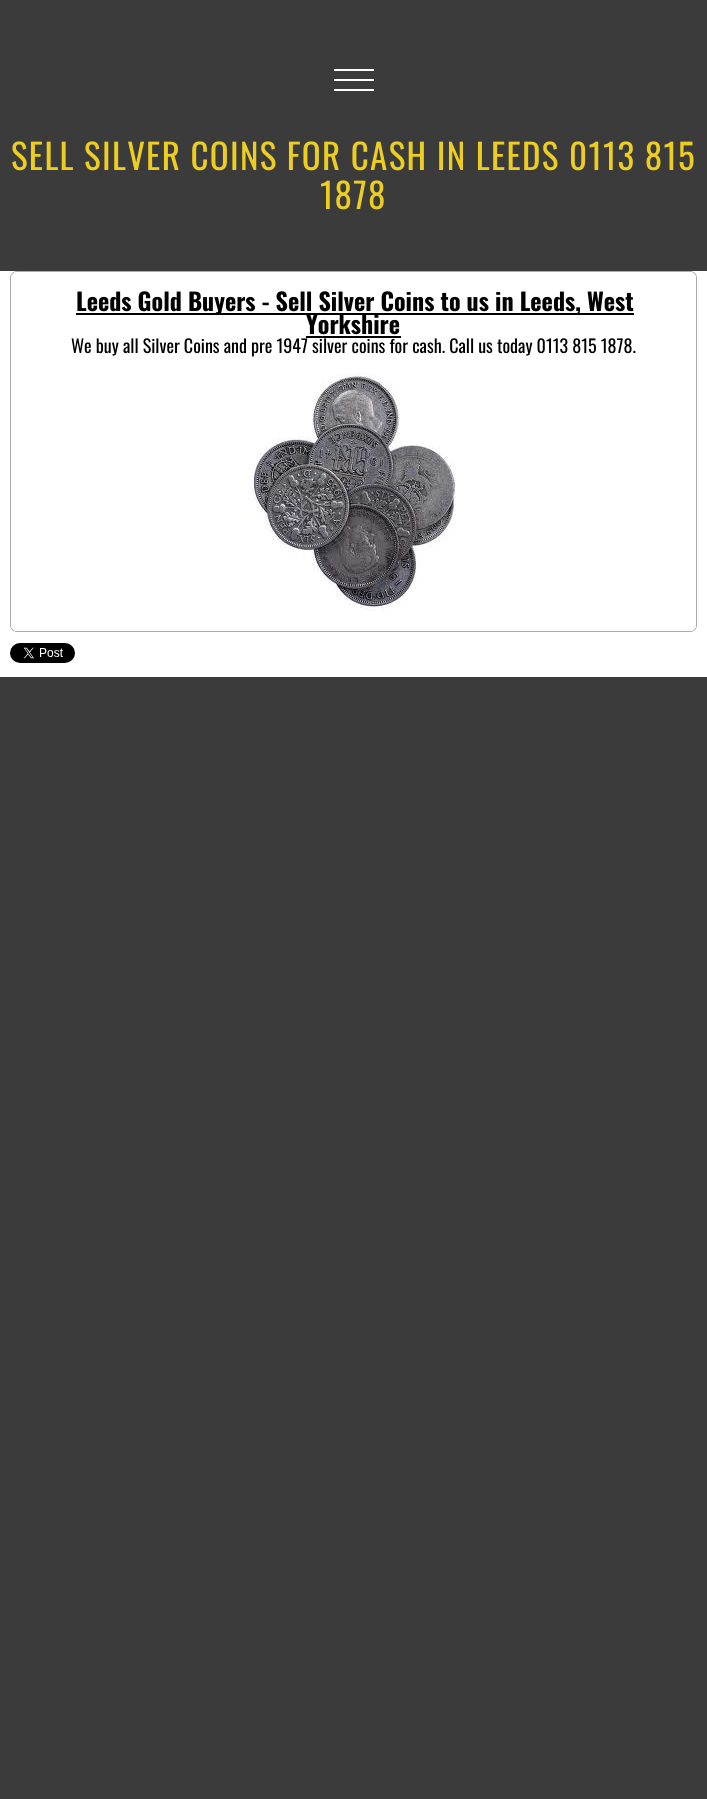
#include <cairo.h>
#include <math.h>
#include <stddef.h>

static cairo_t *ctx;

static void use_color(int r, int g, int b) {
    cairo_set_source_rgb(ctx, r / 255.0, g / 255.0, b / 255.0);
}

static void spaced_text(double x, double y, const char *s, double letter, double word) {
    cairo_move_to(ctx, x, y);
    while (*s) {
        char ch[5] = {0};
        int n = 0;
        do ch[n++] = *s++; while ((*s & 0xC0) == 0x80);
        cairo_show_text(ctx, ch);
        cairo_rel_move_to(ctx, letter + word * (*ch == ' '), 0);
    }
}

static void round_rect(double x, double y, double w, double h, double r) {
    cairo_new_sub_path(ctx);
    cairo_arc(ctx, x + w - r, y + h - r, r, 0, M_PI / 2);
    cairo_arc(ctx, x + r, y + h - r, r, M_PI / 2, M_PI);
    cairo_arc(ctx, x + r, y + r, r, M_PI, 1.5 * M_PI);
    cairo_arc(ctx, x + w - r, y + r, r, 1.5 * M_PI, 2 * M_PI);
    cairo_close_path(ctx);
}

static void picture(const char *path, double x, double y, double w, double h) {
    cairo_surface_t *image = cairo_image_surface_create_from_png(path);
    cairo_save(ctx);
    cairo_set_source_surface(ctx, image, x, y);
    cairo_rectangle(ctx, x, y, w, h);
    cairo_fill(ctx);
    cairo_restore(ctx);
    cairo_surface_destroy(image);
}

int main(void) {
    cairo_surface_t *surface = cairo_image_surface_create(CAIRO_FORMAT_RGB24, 707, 1799);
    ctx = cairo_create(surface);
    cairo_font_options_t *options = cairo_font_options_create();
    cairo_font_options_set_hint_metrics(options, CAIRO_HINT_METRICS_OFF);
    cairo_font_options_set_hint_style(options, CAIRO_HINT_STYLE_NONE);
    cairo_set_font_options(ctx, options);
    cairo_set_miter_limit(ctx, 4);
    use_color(59, 59, 59);
    cairo_paint(ctx);
    use_color(255, 255, 255);
    cairo_rectangle(ctx, 334, 69, 40, 2);
    cairo_fill(ctx);
    cairo_rectangle(ctx, 334, 79, 40, 2);
    cairo_fill(ctx);
    cairo_rectangle(ctx, 334, 89, 40, 2);
    cairo_fill(ctx);
    cairo_select_font_face(ctx, "Oswald", CAIRO_FONT_SLANT_NORMAL, CAIRO_FONT_WEIGHT_NORMAL);
    cairo_set_font_size(ctx, 35);
    use_color(237, 205, 31);
    spaced_text(11, 170, "SELL SILVER COINS FOR CASH IN LEEDS 0113 815", 1.3, 0);
    spaced_text(320, 209, "1878", 1.3, 0);
    use_color(255, 255, 255);
    cairo_rectangle(ctx, 0, 271, 707, 406);
    cairo_fill(ctx);
    round_rect(10.5, 271.5, 686, 360, 6.5);
    use_color(170, 170, 170);
    cairo_set_line_width(ctx, 1);
    cairo_stroke(ctx);
    use_color(255, 255, 255);
    round_rect(11, 272, 685, 359, 6);
    cairo_fill(ctx);
    use_color(0, 0, 0);
    cairo_rectangle(ctx, 76, 313, 558, 2);
    cairo_fill(ctx);
    cairo_select_font_face(ctx, "Oswald", CAIRO_FONT_SLANT_NORMAL, CAIRO_FONT_WEIGHT_BOLD);
    cairo_set_font_size(ctx, 24);
    cairo_move_to(ctx, 76, 311);
    cairo_show_text(ctx, "Leeds Gold Buyers - Sell Silver Coins to us in Leeds, West");
    cairo_move_to(ctx, 306, 334);
    cairo_show_text(ctx, "Yorkshire");
    cairo_rectangle(ctx, 306, 336, 95, 2);
    cairo_fill(ctx);
    cairo_select_font_face(ctx, "Oswald", CAIRO_FONT_SLANT_NORMAL, CAIRO_FONT_WEIGHT_NORMAL);
    cairo_set_font_size(ctx, 18);
    cairo_move_to(ctx, 71, 353);
    cairo_show_text(ctx, "We buy all Silver Coins and pre 1947 silver coins for cash. Call us today 0113 815 1878.");
    picture("img1.png", 248, 373, 208, 238);
    picture("img2.png", 10, 643, 65, 20);
    cairo_surface_write_to_png(surface, "result.png");
    cairo_font_options_destroy(options);
    cairo_destroy(ctx);
    cairo_surface_destroy(surface);
    return 0;
}
